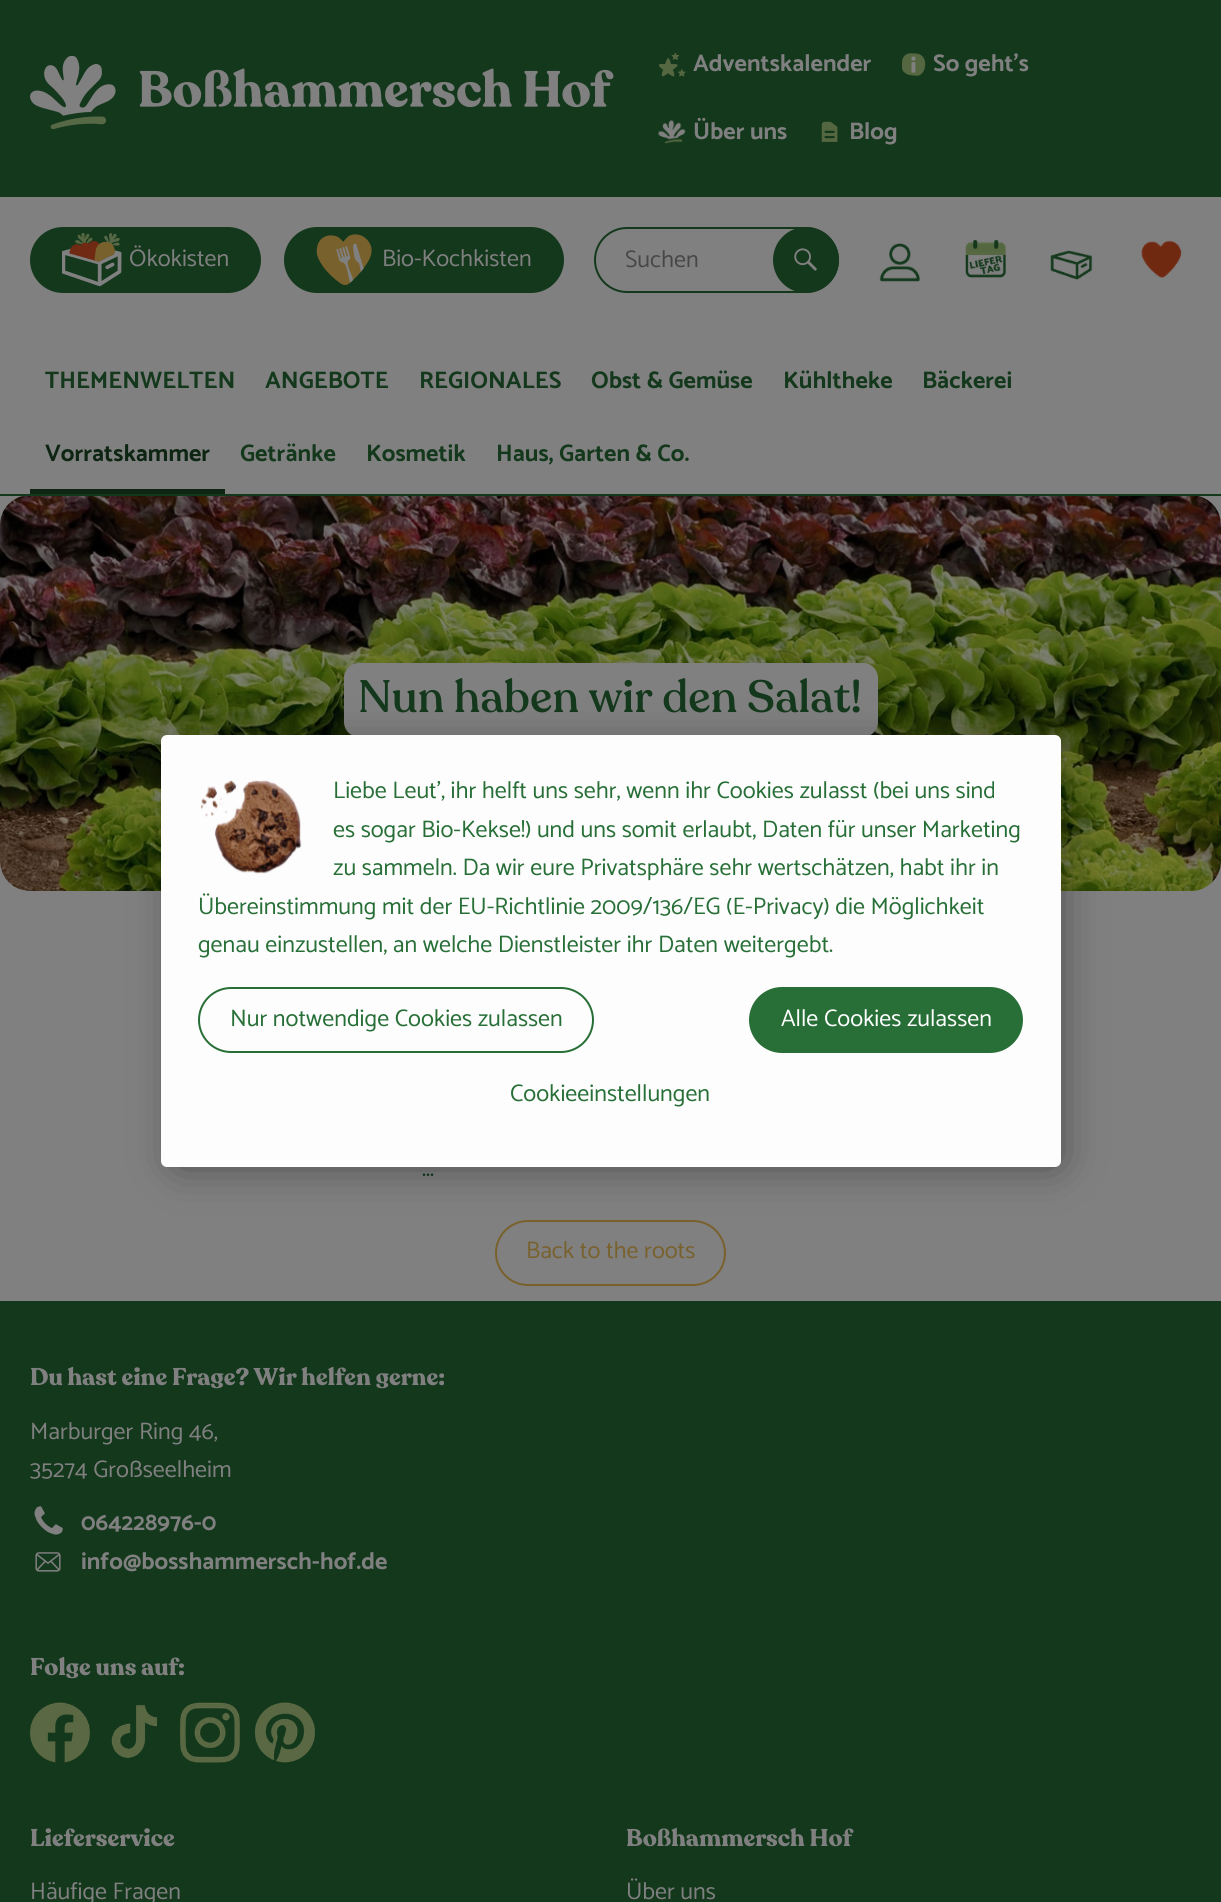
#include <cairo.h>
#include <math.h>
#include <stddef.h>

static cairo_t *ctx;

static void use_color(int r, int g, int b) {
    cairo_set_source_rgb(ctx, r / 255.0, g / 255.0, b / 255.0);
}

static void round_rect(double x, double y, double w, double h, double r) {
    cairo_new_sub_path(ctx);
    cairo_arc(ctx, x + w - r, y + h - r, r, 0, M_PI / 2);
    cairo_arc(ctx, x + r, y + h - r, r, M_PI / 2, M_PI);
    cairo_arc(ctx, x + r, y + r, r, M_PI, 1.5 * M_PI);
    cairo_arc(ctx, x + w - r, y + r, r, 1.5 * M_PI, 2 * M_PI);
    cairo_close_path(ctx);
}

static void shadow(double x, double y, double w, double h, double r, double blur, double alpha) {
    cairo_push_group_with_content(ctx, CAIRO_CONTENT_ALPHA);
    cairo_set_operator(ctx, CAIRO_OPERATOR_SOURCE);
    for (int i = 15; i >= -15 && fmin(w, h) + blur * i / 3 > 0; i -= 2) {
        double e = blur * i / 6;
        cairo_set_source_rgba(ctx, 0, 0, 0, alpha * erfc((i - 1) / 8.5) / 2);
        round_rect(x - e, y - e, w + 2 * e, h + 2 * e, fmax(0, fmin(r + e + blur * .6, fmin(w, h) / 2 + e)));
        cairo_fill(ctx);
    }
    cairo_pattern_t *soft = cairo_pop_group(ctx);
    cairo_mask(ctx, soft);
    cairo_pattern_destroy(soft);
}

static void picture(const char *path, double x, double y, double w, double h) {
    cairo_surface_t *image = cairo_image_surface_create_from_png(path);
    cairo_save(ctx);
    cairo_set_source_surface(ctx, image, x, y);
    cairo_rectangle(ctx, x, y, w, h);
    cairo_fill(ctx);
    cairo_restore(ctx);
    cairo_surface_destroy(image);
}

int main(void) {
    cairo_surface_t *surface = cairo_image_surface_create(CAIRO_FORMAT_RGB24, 1221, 1902);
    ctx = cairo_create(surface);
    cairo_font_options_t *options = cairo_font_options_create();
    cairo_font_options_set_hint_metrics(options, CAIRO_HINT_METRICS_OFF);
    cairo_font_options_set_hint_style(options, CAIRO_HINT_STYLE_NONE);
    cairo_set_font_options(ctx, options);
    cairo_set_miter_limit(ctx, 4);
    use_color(128, 128, 128);
    cairo_paint(ctx);
    use_color(20, 56, 28);
    cairo_rectangle(ctx, 0, 0, 1221, 197);
    cairo_fill(ctx);
    picture("img1.png", 30, 56, 584, 73);
    picture("img2.png", 659, 53, 27, 24);
    cairo_select_font_face(ctx, "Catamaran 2 Thin", CAIRO_FONT_SLANT_NORMAL, CAIRO_FONT_WEIGHT_NORMAL);
    cairo_set_font_size(ctx, 24);
    use_color(128, 128, 128);
    cairo_move_to(ctx, 693, 71);
    cairo_show_text(ctx, "Adventskalender");
    picture("img3.png", 902, 53, 24, 23);
    cairo_move_to(ctx, 933, 71);
    cairo_show_text(ctx, "So geht’s");
    picture("img4.png", 658, 120, 28, 24);
    cairo_move_to(ctx, 693, 139);
    cairo_show_text(ctx, "Über uns");
    picture("img5.png", 821, 121, 17, 21);
    cairo_move_to(ctx, 849, 139);
    cairo_show_text(ctx, "Blog");
    use_color(20, 56, 28);
    round_rect(31, 228, 229, 64, 32);
    cairo_fill_preserve(ctx);
    cairo_stroke(ctx);
    picture("img6.png", 62, 233, 60, 54);
    cairo_select_font_face(ctx, "Catamaran Thin", CAIRO_FONT_SLANT_NORMAL, CAIRO_FONT_WEIGHT_NORMAL);
    use_color(128, 128, 128);
    cairo_move_to(ctx, 129, 266);
    cairo_show_text(ctx, "Ökokisten");
    use_color(20, 56, 28);
    round_rect(285, 228, 278, 64, 32);
    cairo_fill_preserve(ctx);
    cairo_stroke(ctx);
    picture("img7.png", 316, 234, 56, 51);
    use_color(128, 128, 128);
    cairo_move_to(ctx, 382, 266);
    cairo_show_text(ctx, "Bio-Kochkisten");
    round_rect(595, 228, 243, 64, 32);
    use_color(20, 56, 28);
    cairo_stroke(ctx);
    use_color(71, 71, 71);
    cairo_move_to(ctx, 625, 267);
    cairo_show_text(ctx, "Suchen");
    use_color(20, 56, 28);
    cairo_new_path(ctx);
    cairo_arc(ctx, 806, 260, 32, 0, 2 * M_PI);
    cairo_fill_preserve(ctx);
    cairo_stroke(ctx);
    picture("img8.png", 794, 248, 23, 23);
    picture("img9.png", 879, 243, 41, 39);
    picture("img10.png", 965, 239, 41, 39);
    picture("img11.png", 1050, 250, 43, 30);
    picture("img12.png", 1141, 240, 41, 38);
    cairo_rectangle(ctx, 0, 494, 1221, 2);
    cairo_fill(ctx);
    cairo_select_font_face(ctx, "Catamaran 2 Thin", CAIRO_FONT_SLANT_NORMAL, CAIRO_FONT_WEIGHT_NORMAL);
    cairo_move_to(ctx, 45, 388);
    cairo_show_text(ctx, "THEMENWELTEN");
    cairo_move_to(ctx, 265, 388);
    cairo_show_text(ctx, "ANGEBOTE");
    cairo_move_to(ctx, 419, 388);
    cairo_show_text(ctx, "REGIONALES");
    cairo_move_to(ctx, 591, 388);
    cairo_show_text(ctx, "Obst & Gemüse");
    cairo_move_to(ctx, 783, 388);
    cairo_show_text(ctx, "Kühltheke");
    cairo_move_to(ctx, 922, 388);
    cairo_show_text(ctx, "Bäckerei");
    use_color(13, 37, 18);
    cairo_rectangle(ctx, 30, 489, 195, 5);
    cairo_fill(ctx);
    cairo_move_to(ctx, 45, 461);
    cairo_show_text(ctx, "Vorratskammer");
    use_color(20, 56, 28);
    cairo_move_to(ctx, 240, 461);
    cairo_show_text(ctx, "Getränke");
    cairo_move_to(ctx, 366, 461);
    cairo_show_text(ctx, "Kosmetik");
    cairo_move_to(ctx, 496, 461);
    cairo_show_text(ctx, "Haus, Garten & Co.");
    picture("img13.png", 0, 496, 1221, 395);
    use_color(128, 128, 128);
    round_rect(344, 663, 534, 74, 15);
    cairo_fill(ctx);
    cairo_select_font_face(ctx, "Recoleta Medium", CAIRO_FONT_SLANT_NORMAL, CAIRO_FONT_WEIGHT_NORMAL);
    cairo_set_font_size(ctx, 45);
    use_color(20, 56, 28);
    cairo_move_to(ctx, 358, 712);
    cairo_show_text(ctx, "Nun haben wir den Salat!");
    cairo_select_font_face(ctx, "Catamaran Thin", CAIRO_FONT_SLANT_NORMAL, CAIRO_FONT_WEIGHT_NORMAL);
    cairo_set_font_size(ctx, 24);
    cairo_move_to(ctx, 422, 1176);
    cairo_show_text(ctx, "...");
    round_rect(496, 1221, 229, 64, 32);
    use_color(121, 97, 45);
    cairo_stroke(ctx);
    cairo_move_to(ctx, 526, 1258);
    cairo_show_text(ctx, "Back to the roots");
    use_color(20, 56, 28);
    cairo_rectangle(ctx, 0, 1301, 1221, 601);
    cairo_fill(ctx);
    cairo_select_font_face(ctx, "Recoleta", CAIRO_FONT_SLANT_NORMAL, CAIRO_FONT_WEIGHT_BOLD);
    use_color(128, 128, 128);
    cairo_move_to(ctx, 30, 1385);
    cairo_show_text(ctx, "Du hast eine Frage? Wir helfen gerne:");
    cairo_select_font_face(ctx, "Catamaran Thin", CAIRO_FONT_SLANT_NORMAL, CAIRO_FONT_WEIGHT_NORMAL);
    cairo_move_to(ctx, 30, 1439);
    cairo_show_text(ctx, "Marburger Ring 46,");
    cairo_move_to(ctx, 30, 1477);
    cairo_show_text(ctx, "35274 Großseelheim");
    picture("img14.png", 34, 1506, 29, 29);
    cairo_select_font_face(ctx, "Catamaran 2 Thin", CAIRO_FONT_SLANT_NORMAL, CAIRO_FONT_WEIGHT_NORMAL);
    cairo_move_to(ctx, 81, 1530);
    cairo_show_text(ctx, "064228976-0");
    picture("img15.png", 35, 1552, 26, 20);
    cairo_move_to(ctx, 81, 1569);
    cairo_show_text(ctx, "info@bosshammersch-hof.de");
    cairo_select_font_face(ctx, "Recoleta", CAIRO_FONT_SLANT_NORMAL, CAIRO_FONT_WEIGHT_BOLD);
    cairo_move_to(ctx, 30, 1675);
    cairo_show_text(ctx, "Folge uns auf:");
    picture("img16.png", 30, 1702, 60, 61);
    picture("img17.png", 111, 1705, 47, 53);
    picture("img18.png", 180, 1702, 60, 61);
    picture("img19.png", 255, 1702, 60, 61);
    cairo_move_to(ctx, 30, 1846);
    cairo_show_text(ctx, "Lieferservice");
    cairo_select_font_face(ctx, "Catamaran Thin", CAIRO_FONT_SLANT_NORMAL, CAIRO_FONT_WEIGHT_NORMAL);
    cairo_move_to(ctx, 30, 1899);
    cairo_show_text(ctx, "Häufige Fragen");
    cairo_select_font_face(ctx, "Recoleta", CAIRO_FONT_SLANT_NORMAL, CAIRO_FONT_WEIGHT_BOLD);
    cairo_move_to(ctx, 626, 1846);
    cairo_show_text(ctx, "Boßhammersch Hof");
    cairo_select_font_face(ctx, "Catamaran Thin", CAIRO_FONT_SLANT_NORMAL, CAIRO_FONT_WEIGHT_NORMAL);
    cairo_move_to(ctx, 626, 1899);
    cairo_show_text(ctx, "Über uns");
    use_color(0, 0, 0);
    shadow(179, 753, 876, 408, 0, 22.5, 0.5);
    use_color(253, 253, 253);
    round_rect(161, 735, 900, 432, 6);
    cairo_fill(ctx);
    picture("img20.png", 200, 780, 102, 94);
    use_color(39, 111, 55);
    cairo_move_to(ctx, 333, 798);
    cairo_show_text(ctx, "Liebe Leut', ihr helft uns sehr, wenn ihr Cookies zulasst (bei uns sind");
    cairo_move_to(ctx, 333, 837);
    cairo_show_text(ctx, "es sogar Bio-Kekse!) und uns somit erlaubt, Daten für unser Marketing");
    cairo_move_to(ctx, 333, 875);
    cairo_show_text(ctx, "zu sammeln. Da wir eure Privatsphäre sehr wertschätzen, habt ihr in");
    cairo_move_to(ctx, 198, 914);
    cairo_show_text(ctx, "Übereinstimmung mit der EU-Richtlinie 2009/136/EG (E-Privacy) die Möglichkeit");
    cairo_move_to(ctx, 198, 952);
    cairo_show_text(ctx, "genau einzustellen, an welche Dienstleister ihr Daten weitergebt.");
    round_rect(199, 988, 394, 64, 32);
    cairo_stroke(ctx);
    cairo_move_to(ctx, 230, 1026);
    cairo_show_text(ctx, "Nur notwendige Cookies zulassen");
    round_rect(750, 988, 272, 64, 32);
    cairo_fill_preserve(ctx);
    cairo_stroke(ctx);
    use_color(255, 255, 255);
    cairo_move_to(ctx, 781, 1026);
    cairo_show_text(ctx, "Alle Cookies zulassen");
    use_color(39, 111, 55);
    cairo_move_to(ctx, 510, 1101);
    cairo_show_text(ctx, "Cookieeinstellungen");
    cairo_surface_write_to_png(surface, "result.png");
    cairo_font_options_destroy(options);
    cairo_destroy(ctx);
    cairo_surface_destroy(surface);
    return 0;
}
